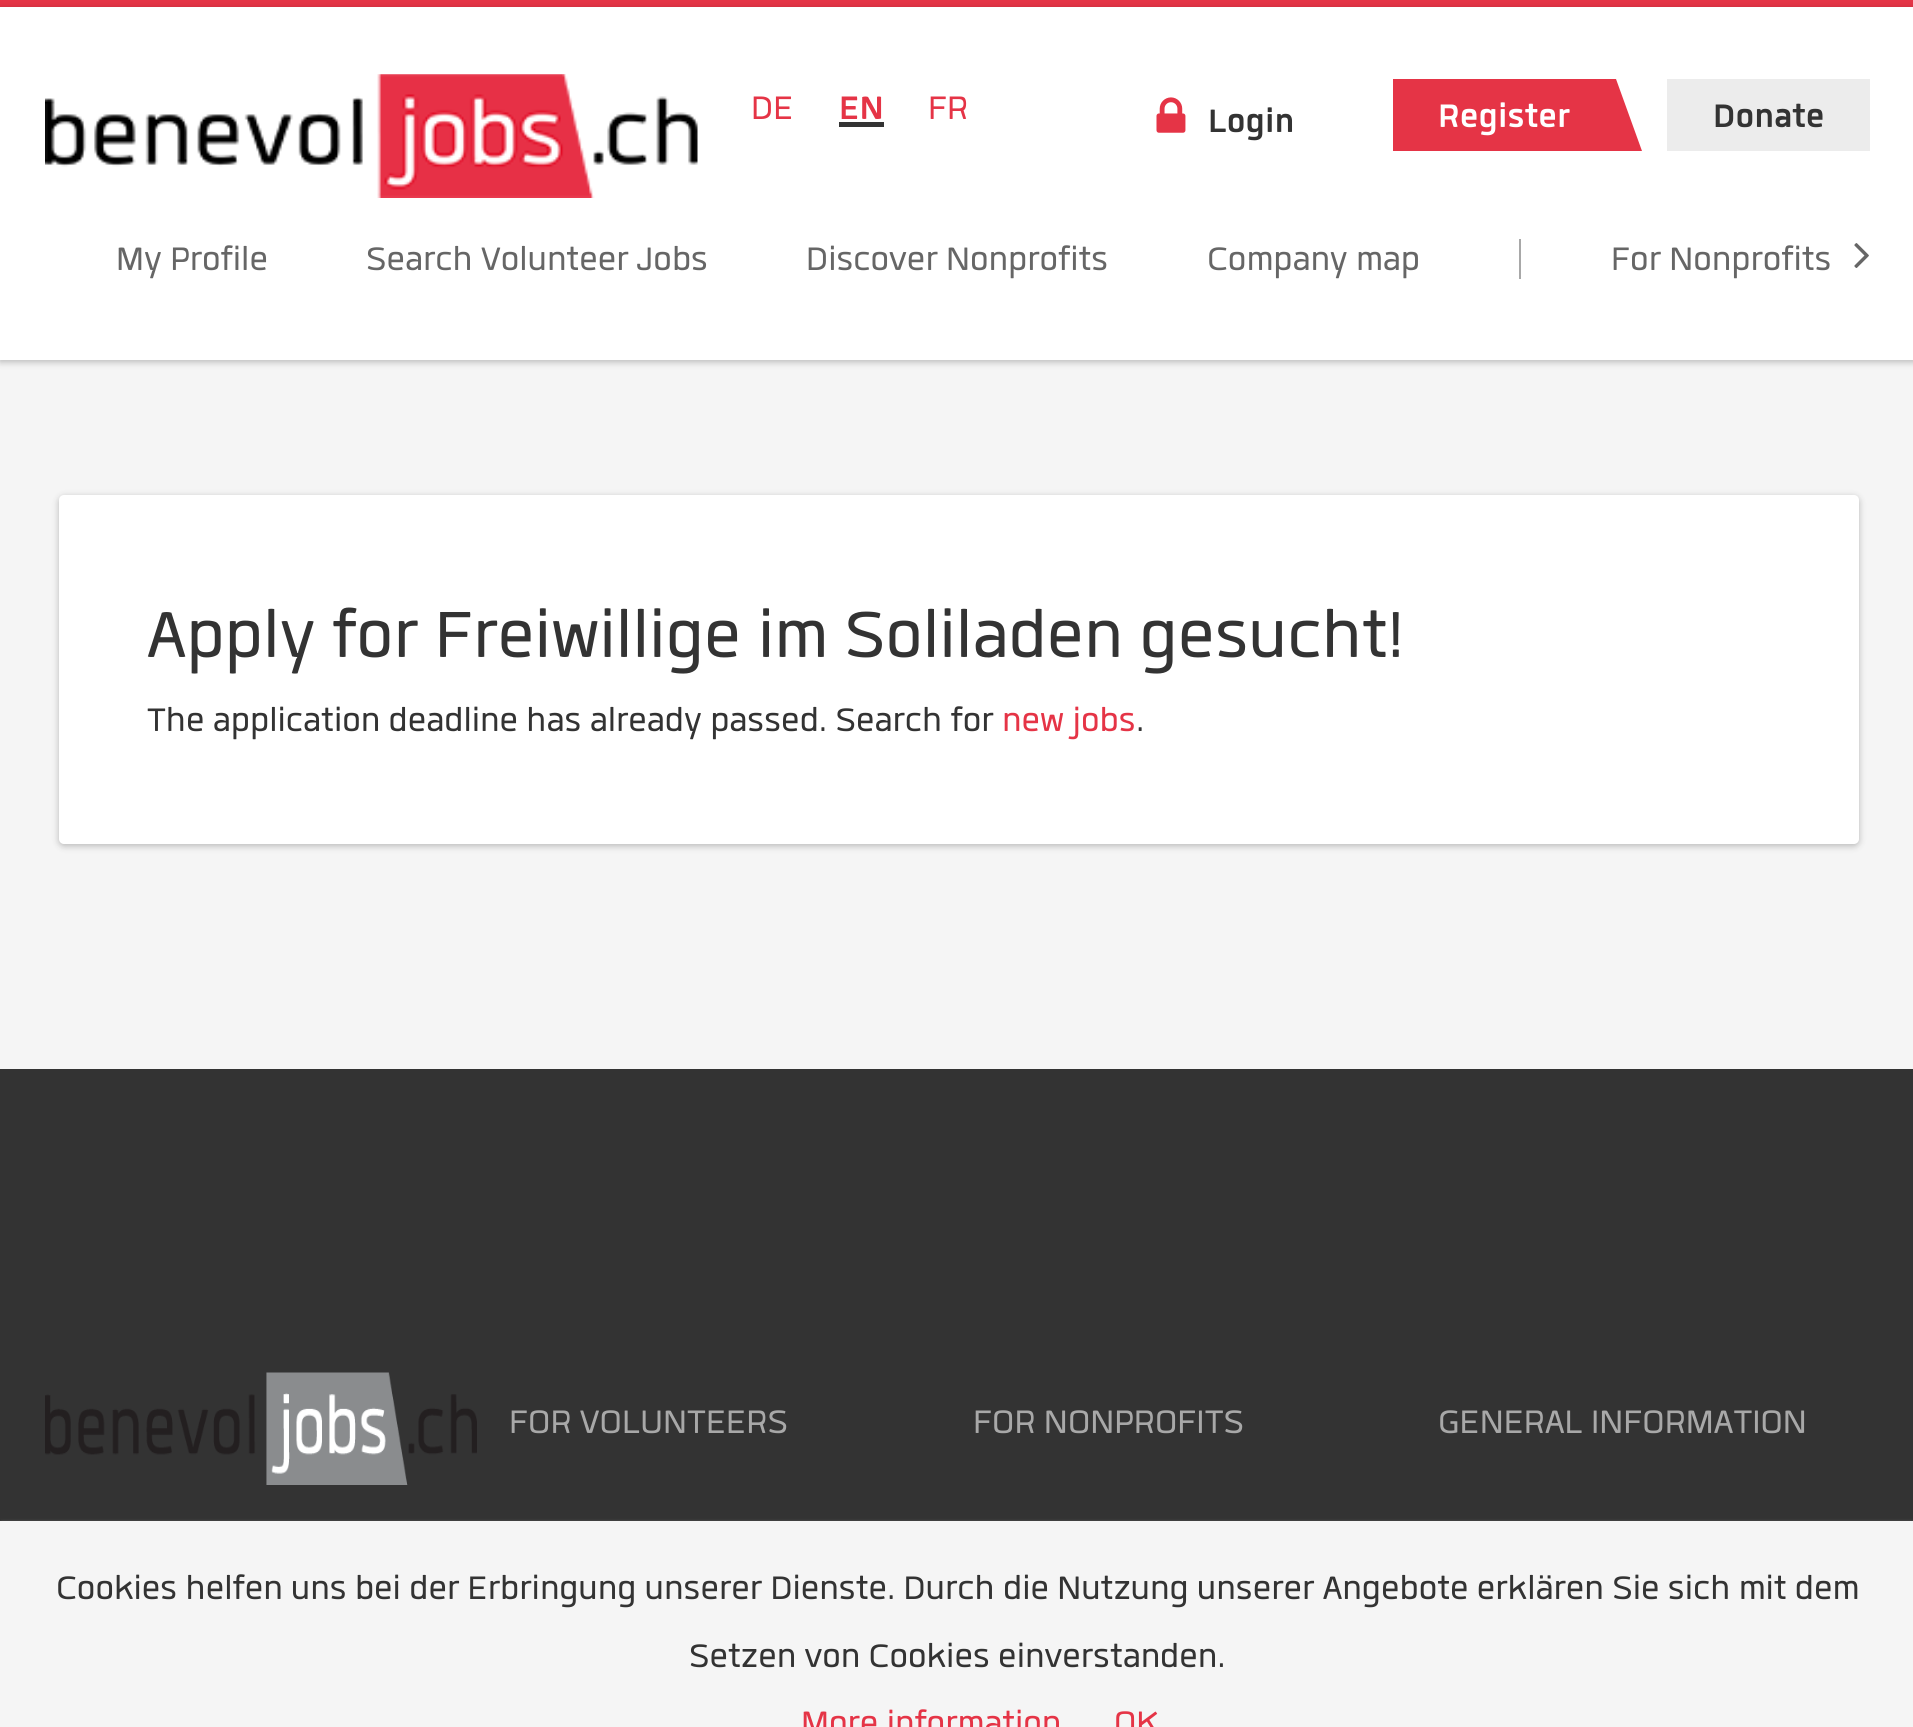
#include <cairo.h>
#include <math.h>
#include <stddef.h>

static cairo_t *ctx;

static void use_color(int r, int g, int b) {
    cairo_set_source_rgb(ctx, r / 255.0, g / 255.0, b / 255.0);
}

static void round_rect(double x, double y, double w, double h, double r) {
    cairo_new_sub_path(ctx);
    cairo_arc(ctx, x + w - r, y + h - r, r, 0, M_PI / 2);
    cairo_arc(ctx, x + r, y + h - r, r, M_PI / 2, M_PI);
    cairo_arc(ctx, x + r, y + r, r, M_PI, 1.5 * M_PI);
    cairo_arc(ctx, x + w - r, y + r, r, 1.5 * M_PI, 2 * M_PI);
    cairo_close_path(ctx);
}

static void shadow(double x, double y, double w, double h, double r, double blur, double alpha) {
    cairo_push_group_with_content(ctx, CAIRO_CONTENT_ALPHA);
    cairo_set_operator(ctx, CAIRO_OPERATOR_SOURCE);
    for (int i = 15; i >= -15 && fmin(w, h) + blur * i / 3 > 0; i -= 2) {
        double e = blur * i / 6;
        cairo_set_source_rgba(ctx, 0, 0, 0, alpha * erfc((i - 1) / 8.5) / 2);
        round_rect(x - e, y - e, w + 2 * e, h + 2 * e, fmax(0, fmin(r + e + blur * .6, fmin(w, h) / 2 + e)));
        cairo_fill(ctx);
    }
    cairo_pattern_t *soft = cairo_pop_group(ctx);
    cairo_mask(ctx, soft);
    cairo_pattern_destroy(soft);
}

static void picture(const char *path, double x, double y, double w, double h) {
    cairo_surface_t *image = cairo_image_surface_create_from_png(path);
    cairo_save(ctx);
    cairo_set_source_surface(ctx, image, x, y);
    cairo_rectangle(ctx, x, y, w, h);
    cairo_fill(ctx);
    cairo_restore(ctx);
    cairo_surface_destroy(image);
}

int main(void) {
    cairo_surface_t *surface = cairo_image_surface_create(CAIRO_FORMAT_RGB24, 1913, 1727);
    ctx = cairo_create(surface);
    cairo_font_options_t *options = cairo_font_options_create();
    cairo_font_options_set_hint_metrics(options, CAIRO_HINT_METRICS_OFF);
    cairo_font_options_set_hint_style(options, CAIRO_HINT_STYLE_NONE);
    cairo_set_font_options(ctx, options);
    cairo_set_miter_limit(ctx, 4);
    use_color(245, 245, 245);
    cairo_paint(ctx);
    use_color(229, 52, 70);
    cairo_rectangle(ctx, 0, 0, 1913, 7);
    cairo_fill(ctx);
    use_color(0, 0, 0);
    shadow(0, 9, 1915, 353, 0, 3.5, 0.25);
    use_color(255, 255, 255);
    cairo_rectangle(ctx, 0, 7, 1913, 353);
    cairo_fill(ctx);
    picture("img1.png", 45, 74, 653, 124);
    cairo_select_font_face(ctx, "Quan", CAIRO_FONT_SLANT_NORMAL, CAIRO_FONT_WEIGHT_NORMAL);
    cairo_set_font_size(ctx, 45);
    use_color(229, 52, 70);
    cairo_move_to(ctx, 751, 119);
    cairo_show_text(ctx, "DE");
    cairo_select_font_face(ctx, "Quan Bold", CAIRO_FONT_SLANT_NORMAL, CAIRO_FONT_WEIGHT_BOLD);
    cairo_move_to(ctx, 839, 119);
    cairo_show_text(ctx, "EN");
    use_color(51, 51, 51);
    cairo_rectangle(ctx, 839, 122, 45, 5);
    cairo_fill(ctx);
    cairo_select_font_face(ctx, "Quan", CAIRO_FONT_SLANT_NORMAL, CAIRO_FONT_WEIGHT_NORMAL);
    use_color(229, 52, 70);
    cairo_move_to(ctx, 928, 119);
    cairo_show_text(ctx, "FR");
    picture("img2.png", 1156, 97, 30, 36);
    cairo_select_font_face(ctx, "Quan Bold", CAIRO_FONT_SLANT_NORMAL, CAIRO_FONT_WEIGHT_BOLD);
    use_color(51, 51, 51);
    cairo_move_to(ctx, 1208, 132);
    cairo_show_text(ctx, "Login");
    use_color(229, 52, 70);
    cairo_rectangle(ctx, 1393, 79, 223, 72);
    cairo_fill(ctx);
    use_color(255, 255, 255);
    cairo_move_to(ctx, 1438, 127);
    cairo_show_text(ctx, "Register");
    use_color(229, 52, 70);
    cairo_new_path(ctx);
    cairo_move_to(ctx, 1642, 151);
    cairo_line_to(ctx, 1593, 151);
    cairo_line_to(ctx, 1616, 79);
    cairo_close_path(ctx);
    cairo_fill(ctx);
    use_color(236, 236, 236);
    cairo_rectangle(ctx, 1667, 79, 203, 72);
    cairo_fill(ctx);
    use_color(51, 51, 51);
    cairo_move_to(ctx, 1713, 127);
    cairo_show_text(ctx, "Donate");
    cairo_select_font_face(ctx, "Quan", CAIRO_FONT_SLANT_NORMAL, CAIRO_FONT_WEIGHT_NORMAL);
    use_color(102, 102, 102);
    cairo_move_to(ctx, 116, 270);
    cairo_show_text(ctx, "My Profile");
    cairo_move_to(ctx, 366, 270);
    cairo_show_text(ctx, "Search Volunteer Jobs");
    cairo_move_to(ctx, 806, 270);
    cairo_show_text(ctx, "Discover Nonprofits");
    cairo_move_to(ctx, 1207, 270);
    cairo_show_text(ctx, "Company map");
    use_color(168, 168, 168);
    cairo_rectangle(ctx, 1519, 239, 2, 40);
    cairo_fill(ctx);
    use_color(102, 102, 102);
    cairo_move_to(ctx, 1611, 270);
    cairo_show_text(ctx, "For Nonprofits");
    picture("img3.png", 1854, 243, 15, 25);
    use_color(0, 0, 0);
    shadow(59, 497, 1800, 349, 5, 3.5, 0.25);
    use_color(255, 255, 255);
    round_rect(59, 495, 1800, 349, 5);
    cairo_fill(ctx);
    cairo_set_font_size(ctx, 90);
    use_color(51, 51, 51);
    cairo_move_to(ctx, 147, 657);
    cairo_show_text(ctx, "Apply for Freiwillige im Soliladen gesucht!");
    cairo_set_font_size(ctx, 45);
    cairo_move_to(ctx, 147, 731);
    cairo_show_text(ctx, "The application deadline has already passed. Search for");
    use_color(229, 52, 70);
    cairo_move_to(ctx, 1002, 731);
    cairo_show_text(ctx, "new jobs");
    use_color(51, 51, 51);
    cairo_move_to(ctx, 1136, 731);
    cairo_show_text(ctx, ".");
    cairo_rectangle(ctx, 0, 1069, 1913, 452);
    cairo_fill(ctx);
    picture("img4.png", 45, 1372, 432, 113);
    use_color(168, 168, 168);
    cairo_move_to(ctx, 509, 1433);
    cairo_show_text(ctx, "FOR VOLUNTEERS");
    cairo_move_to(ctx, 973, 1433);
    cairo_show_text(ctx, "FOR NONPROFITS");
    cairo_move_to(ctx, 1438, 1433);
    cairo_show_text(ctx, "GENERAL INFORMATION");
    use_color(168, 168, 168);
    shadow(2, 1523, 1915, 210, 0, 2, 1);
    use_color(245, 245, 245);
    cairo_rectangle(ctx, 0, 1521, 1913, 206);
    cairo_fill(ctx);
    use_color(51, 51, 51);
    cairo_move_to(ctx, 56, 1599);
    cairo_show_text(ctx, "Cookies helfen uns bei der Erbringung unserer Dienste. Durch die Nutzung unserer Angebote erklären Sie sich mit dem");
    cairo_move_to(ctx, 689, 1667);
    cairo_show_text(ctx, "Setzen von Cookies einverstanden.");
    use_color(229, 52, 70);
    cairo_move_to(ctx, 801, 1734);
    cairo_show_text(ctx, "More information");
    cairo_move_to(ctx, 1114, 1734);
    cairo_show_text(ctx, "OK");
    cairo_surface_write_to_png(surface, "result.png");
    cairo_font_options_destroy(options);
    cairo_destroy(ctx);
    cairo_surface_destroy(surface);
    return 0;
}
